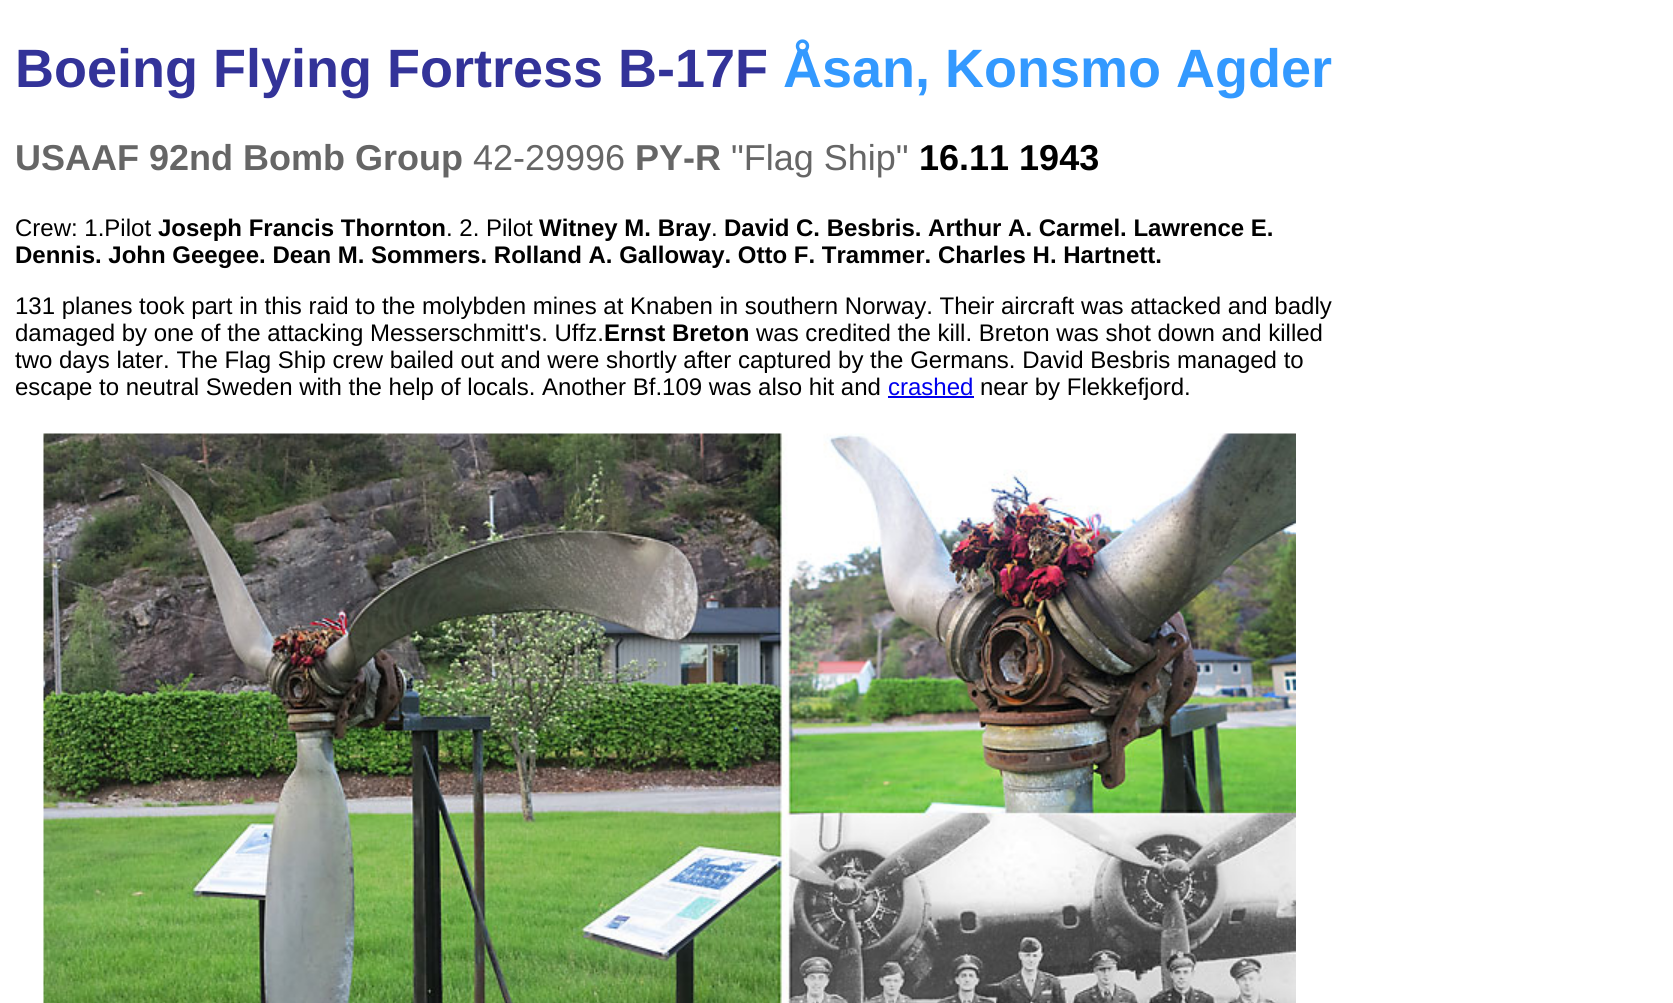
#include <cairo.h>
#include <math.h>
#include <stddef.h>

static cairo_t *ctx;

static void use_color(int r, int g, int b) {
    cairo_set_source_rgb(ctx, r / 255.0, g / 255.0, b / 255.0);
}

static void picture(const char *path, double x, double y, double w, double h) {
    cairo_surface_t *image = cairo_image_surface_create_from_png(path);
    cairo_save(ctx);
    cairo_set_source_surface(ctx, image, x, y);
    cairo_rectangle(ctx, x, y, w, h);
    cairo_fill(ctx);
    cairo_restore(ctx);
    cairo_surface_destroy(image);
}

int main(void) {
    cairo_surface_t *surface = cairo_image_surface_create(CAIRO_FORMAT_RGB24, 1673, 1003);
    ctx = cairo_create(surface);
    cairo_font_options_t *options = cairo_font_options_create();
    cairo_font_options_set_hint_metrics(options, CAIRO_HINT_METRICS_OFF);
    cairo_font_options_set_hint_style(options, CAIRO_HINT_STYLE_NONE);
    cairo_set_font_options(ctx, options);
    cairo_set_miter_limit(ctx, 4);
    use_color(255, 255, 255);
    cairo_paint(ctx);
    cairo_select_font_face(ctx, "Liberation Sans", CAIRO_FONT_SLANT_NORMAL, CAIRO_FONT_WEIGHT_BOLD);
    cairo_set_font_size(ctx, 54);
    use_color(51, 51, 153);
    cairo_move_to(ctx, 15, 87);
    cairo_show_text(ctx, "Boeing Flying Fortress B-17F");
    use_color(51, 153, 255);
    cairo_move_to(ctx, 783, 87);
    cairo_show_text(ctx, "Åsan, Konsmo Agder");
    cairo_set_font_size(ctx, 36);
    use_color(102, 102, 102);
    cairo_move_to(ctx, 15, 170);
    cairo_show_text(ctx, "USAAF 92nd Bomb Group");
    cairo_select_font_face(ctx, "Liberation Sans", CAIRO_FONT_SLANT_NORMAL, CAIRO_FONT_WEIGHT_NORMAL);
    cairo_move_to(ctx, 473, 170);
    cairo_show_text(ctx, "42-29996");
    cairo_select_font_face(ctx, "Liberation Sans", CAIRO_FONT_SLANT_NORMAL, CAIRO_FONT_WEIGHT_BOLD);
    cairo_move_to(ctx, 635, 170);
    cairo_show_text(ctx, "PY-R");
    cairo_select_font_face(ctx, "Liberation Sans", CAIRO_FONT_SLANT_NORMAL, CAIRO_FONT_WEIGHT_NORMAL);
    cairo_move_to(ctx, 731, 170);
    cairo_show_text(ctx, "\"Flag Ship\"");
    cairo_select_font_face(ctx, "Liberation Sans", CAIRO_FONT_SLANT_NORMAL, CAIRO_FONT_WEIGHT_BOLD);
    use_color(0, 0, 0);
    cairo_move_to(ctx, 919, 170);
    cairo_show_text(ctx, "16.11 1943");
    cairo_select_font_face(ctx, "Liberation Sans", CAIRO_FONT_SLANT_NORMAL, CAIRO_FONT_WEIGHT_NORMAL);
    cairo_set_font_size(ctx, 24);
    cairo_move_to(ctx, 15, 236);
    cairo_show_text(ctx, "Crew: 1.Pilot");
    cairo_select_font_face(ctx, "Liberation Sans", CAIRO_FONT_SLANT_NORMAL, CAIRO_FONT_WEIGHT_BOLD);
    cairo_move_to(ctx, 158, 236);
    cairo_show_text(ctx, "Joseph Francis Thornton");
    cairo_select_font_face(ctx, "Liberation Sans", CAIRO_FONT_SLANT_NORMAL, CAIRO_FONT_WEIGHT_NORMAL);
    cairo_move_to(ctx, 446, 236);
    cairo_show_text(ctx, ". 2. Pilot");
    cairo_select_font_face(ctx, "Liberation Sans", CAIRO_FONT_SLANT_NORMAL, CAIRO_FONT_WEIGHT_BOLD);
    cairo_move_to(ctx, 539, 236);
    cairo_show_text(ctx, "Witney M. Bray");
    cairo_select_font_face(ctx, "Liberation Sans", CAIRO_FONT_SLANT_NORMAL, CAIRO_FONT_WEIGHT_NORMAL);
    cairo_move_to(ctx, 711, 236);
    cairo_show_text(ctx, ".");
    cairo_select_font_face(ctx, "Liberation Sans", CAIRO_FONT_SLANT_NORMAL, CAIRO_FONT_WEIGHT_BOLD);
    cairo_move_to(ctx, 724, 236);
    cairo_show_text(ctx, "David C. Besbris. Arthur A. Carmel. Lawrence E.");
    cairo_move_to(ctx, 15, 263);
    cairo_show_text(ctx, "Dennis. John Geegee. Dean M. Sommers. Rolland A. Galloway. Otto F. Trammer. Charles H. Hartnett.");
    cairo_select_font_face(ctx, "Liberation Sans", CAIRO_FONT_SLANT_NORMAL, CAIRO_FONT_WEIGHT_NORMAL);
    cairo_move_to(ctx, 15, 314);
    cairo_show_text(ctx, "131 planes took part in this raid to the molybden mines at Knaben in southern Norway. Their aircraft was attacked and badly");
    cairo_move_to(ctx, 15, 341);
    cairo_show_text(ctx, "damaged by one of the attacking Messerschmitt's. Uffz.");
    cairo_select_font_face(ctx, "Liberation Sans", CAIRO_FONT_SLANT_NORMAL, CAIRO_FONT_WEIGHT_BOLD);
    cairo_move_to(ctx, 604, 341);
    cairo_show_text(ctx, "Ernst Breton");
    cairo_select_font_face(ctx, "Liberation Sans", CAIRO_FONT_SLANT_NORMAL, CAIRO_FONT_WEIGHT_NORMAL);
    cairo_move_to(ctx, 756, 341);
    cairo_show_text(ctx, "was credited the kill. Breton was shot down and killed");
    cairo_move_to(ctx, 15, 368);
    cairo_show_text(ctx, "two days later. The Flag Ship crew bailed out and were shortly after captured by the Germans. David Besbris managed to");
    cairo_move_to(ctx, 15, 395);
    cairo_show_text(ctx, "escape to neutral Sweden with the help of locals. Another Bf.109 was also hit and");
    use_color(0, 0, 238);
    cairo_move_to(ctx, 888, 395);
    cairo_show_text(ctx, "crashed");
    cairo_rectangle(ctx, 888, 396, 86, 2);
    cairo_fill(ctx);
    use_color(0, 0, 0);
    cairo_move_to(ctx, 980, 395);
    cairo_show_text(ctx, "near by Flekkefjord.");
    picture("img1.png", 43, 433, 1253, 570);
    cairo_surface_write_to_png(surface, "result.png");
    cairo_font_options_destroy(options);
    cairo_destroy(ctx);
    cairo_surface_destroy(surface);
    return 0;
}
